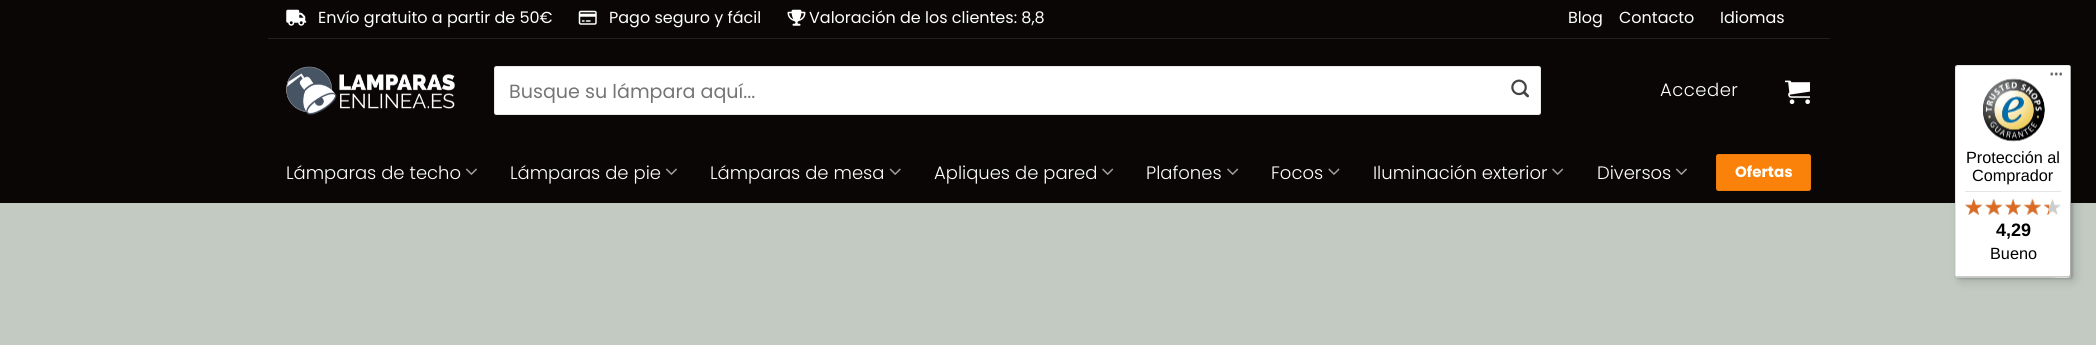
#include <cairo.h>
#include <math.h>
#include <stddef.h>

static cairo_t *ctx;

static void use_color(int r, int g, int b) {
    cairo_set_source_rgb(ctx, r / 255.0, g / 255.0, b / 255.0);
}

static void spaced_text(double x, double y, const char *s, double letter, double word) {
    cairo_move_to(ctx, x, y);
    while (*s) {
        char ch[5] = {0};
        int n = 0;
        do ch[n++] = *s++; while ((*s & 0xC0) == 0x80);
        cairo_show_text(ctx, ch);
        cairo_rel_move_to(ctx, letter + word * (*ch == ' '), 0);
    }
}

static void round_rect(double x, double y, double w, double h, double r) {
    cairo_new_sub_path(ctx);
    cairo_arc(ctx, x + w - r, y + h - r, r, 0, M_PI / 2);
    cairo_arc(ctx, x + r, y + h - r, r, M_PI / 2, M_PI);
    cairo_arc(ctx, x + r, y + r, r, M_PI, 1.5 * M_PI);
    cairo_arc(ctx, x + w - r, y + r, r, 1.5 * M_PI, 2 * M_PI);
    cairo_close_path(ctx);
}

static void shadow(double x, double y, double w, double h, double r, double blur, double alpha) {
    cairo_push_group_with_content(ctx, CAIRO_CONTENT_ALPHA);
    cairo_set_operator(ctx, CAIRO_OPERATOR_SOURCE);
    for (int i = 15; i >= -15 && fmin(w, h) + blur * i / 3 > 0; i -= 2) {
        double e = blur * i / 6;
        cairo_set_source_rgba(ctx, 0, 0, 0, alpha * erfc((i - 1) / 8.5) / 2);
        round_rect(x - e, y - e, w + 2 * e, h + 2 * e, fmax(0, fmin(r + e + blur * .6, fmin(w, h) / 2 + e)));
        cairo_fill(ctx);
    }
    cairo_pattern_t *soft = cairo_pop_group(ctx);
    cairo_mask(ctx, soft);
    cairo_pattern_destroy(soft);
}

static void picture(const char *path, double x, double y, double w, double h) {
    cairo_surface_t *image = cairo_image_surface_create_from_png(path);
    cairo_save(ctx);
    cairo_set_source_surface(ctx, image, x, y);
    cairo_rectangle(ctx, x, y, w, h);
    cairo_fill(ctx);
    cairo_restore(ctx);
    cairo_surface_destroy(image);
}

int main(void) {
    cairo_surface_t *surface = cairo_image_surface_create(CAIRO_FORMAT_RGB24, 2096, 345);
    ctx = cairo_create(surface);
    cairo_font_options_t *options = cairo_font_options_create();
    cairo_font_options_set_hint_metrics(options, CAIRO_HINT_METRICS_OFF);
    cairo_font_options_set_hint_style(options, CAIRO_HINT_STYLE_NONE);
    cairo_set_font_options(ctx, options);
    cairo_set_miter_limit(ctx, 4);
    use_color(194, 202, 194);
    cairo_paint(ctx);
    use_color(10, 6, 6);
    cairo_rectangle(ctx, 0, 0, 2096, 203);
    cairo_fill(ctx);
    picture("img1.png", 286, 9, 21, 17);
    cairo_select_font_face(ctx, "Poppins", CAIRO_FONT_SLANT_NORMAL, CAIRO_FONT_WEIGHT_NORMAL);
    cairo_set_font_size(ctx, 16);
    use_color(255, 255, 255);
    cairo_move_to(ctx, 318, 23);
    cairo_show_text(ctx, "Envío gratuito a partir de 50€");
    picture("img2.png", 578, 10, 19, 15);
    cairo_move_to(ctx, 609, 23);
    cairo_show_text(ctx, "Pago seguro y fácil");
    picture("img3.png", 787, 9, 19, 17);
    cairo_move_to(ctx, 809, 23);
    cairo_show_text(ctx, "Valoración de los clientes: 8,8");
    cairo_move_to(ctx, 1568, 23);
    cairo_show_text(ctx, "Blog");
    cairo_move_to(ctx, 1619, 23);
    cairo_show_text(ctx, "Contacto");
    cairo_move_to(ctx, 1720, 23);
    cairo_show_text(ctx, "Idiomas");
    use_color(35, 31, 31);
    cairo_rectangle(ctx, 268, 38, 1562, 1);
    cairo_fill(ctx);
    picture("img4.png", 286, 66, 169, 49);
    use_color(255, 255, 255);
    round_rect(494, 66, 1047, 49, 2.5);
    cairo_fill(ctx);
    round_rect(494.5, 66.5, 1046, 48, 2);
    cairo_set_source_rgba(ctx, 0, 0, 0, 0.09);
    cairo_set_line_width(ctx, 1);
    cairo_stroke(ctx);
    cairo_set_font_size(ctx, 19.1);
    use_color(117, 117, 117);
    cairo_move_to(ctx, 509, 98);
    cairo_show_text(ctx, "Busque su lámpara aquí...");
    picture("img5.png", 1511, 79, 18, 19);
    cairo_select_font_face(ctx, "Poppins Light", CAIRO_FONT_SLANT_NORMAL, CAIRO_FONT_WEIGHT_NORMAL);
    cairo_set_font_size(ctx, 18);
    use_color(255, 255, 255);
    spaced_text(1660, 96, "Acceder", 0.5, 0);
    picture("img6.png", 1785, 80, 25, 24);
    cairo_move_to(ctx, 286, 179);
    cairo_show_text(ctx, "Lámparas de techo");
    picture("img7.png", 465, 168, 12, 7);
    cairo_move_to(ctx, 510, 179);
    cairo_show_text(ctx, "Lámparas de pie");
    picture("img7.png", 665, 168, 12, 7);
    cairo_move_to(ctx, 710, 179);
    cairo_show_text(ctx, "Lámparas de mesa");
    picture("img8.png", 889, 168, 12, 7);
    cairo_move_to(ctx, 934, 179);
    cairo_show_text(ctx, "Apliques de pared");
    picture("img9.png", 1102, 168, 12, 7);
    cairo_move_to(ctx, 1146, 179);
    cairo_show_text(ctx, "Plafones");
    picture("img9.png", 1227, 168, 12, 7);
    cairo_move_to(ctx, 1271, 179);
    cairo_show_text(ctx, "Focos");
    picture("img10.png", 1328, 168, 12, 7);
    cairo_move_to(ctx, 1373, 179);
    cairo_show_text(ctx, "Iluminación exterior");
    picture("img9.png", 1552, 168, 12, 7);
    cairo_move_to(ctx, 1597, 179);
    cairo_show_text(ctx, "Diversos");
    picture("img7.png", 1675, 168, 12, 7);
    use_color(250, 130, 10);
    round_rect(1716, 154, 95, 37, 2.5);
    cairo_fill(ctx);
    cairo_rectangle(ctx, 1716.5, 154.5, 94, 36);
    cairo_set_source_rgba(ctx, 0, 0, 0, 0.05);
    cairo_stroke(ctx);
    cairo_select_font_face(ctx, "Poppins", CAIRO_FONT_SLANT_NORMAL, CAIRO_FONT_WEIGHT_BOLD);
    cairo_set_font_size(ctx, 15);
    use_color(255, 255, 255);
    cairo_move_to(ctx, 1735, 177);
    cairo_show_text(ctx, "Ofertas");
    use_color(0, 0, 0);
    shadow(1959, 69, 116, 212, 2.5, 5, 0.15);
    shadow(1956, 66, 117, 213, 2.5, 1, 0.15);
    use_color(255, 255, 255);
    round_rect(1955, 65, 116, 213, 2.5);
    cairo_fill(ctx);
    cairo_set_source_rgba(ctx, 0, 0, 0, 0.1);
    cairo_new_path(ctx);
    cairo_move_to(ctx, 1959, 66);
    cairo_line_to(ctx, 2071, 66);
    cairo_curve_to(ctx, 2070, 65, 2069, 65, 2068, 65);
    cairo_line_to(ctx, 1958, 65);
    cairo_curve_to(ctx, 1956, 65, 1955, 66, 1955, 68);
    cairo_line_to(ctx, 1955, 276);
    cairo_curve_to(ctx, 1955, 276, 1956, 277, 1956, 278);
    cairo_line_to(ctx, 1956, 276);
    cairo_line_to(ctx, 1956, 69);
    cairo_curve_to(ctx, 1956, 67, 1957, 66, 1959, 66);
    cairo_close_path(ctx);
    cairo_fill(ctx);
    cairo_set_source_rgba(ctx, 0, 0, 0, 0.2);
    cairo_new_path(ctx);
    cairo_move_to(ctx, 1955, 276);
    cairo_curve_to(ctx, 1955, 277, 1956, 278, 1958, 278);
    cairo_line_to(ctx, 2068, 278);
    cairo_curve_to(ctx, 2070, 278, 2071, 277, 2071, 276);
    cairo_line_to(ctx, 2071, 68);
    cairo_curve_to(ctx, 2071, 67, 2071, 66, 2070, 65);
    cairo_line_to(ctx, 2070, 274);
    cairo_curve_to(ctx, 2070, 275, 2069, 276, 2068, 276);
    cairo_close_path(ctx);
    cairo_fill(ctx);
    cairo_set_source_rgba(ctx, 0.196, 0.196, 0.196, 0.2);
    cairo_new_path(ctx);
    cairo_move_to(ctx, 1955, 277);
    cairo_curve_to(ctx, 1956, 277, 1957, 278, 1958, 278);
    cairo_line_to(ctx, 2068, 278);
    cairo_curve_to(ctx, 2070, 278, 2071, 277, 2071, 276);
    cairo_line_to(ctx, 2071, 68);
    cairo_curve_to(ctx, 2071, 67, 2070, 66, 2070, 65);
    cairo_line_to(ctx, 2070, 274);
    cairo_curve_to(ctx, 2070, 281, 2055, 277, 2050, 277);
    cairo_close_path(ctx);
    cairo_fill(ctx);
    picture("img11.png", 2050, 72, 12, 4);
    cairo_set_source_rgba(ctx, 1, 1, 1, 0.3);
    cairo_new_path(ctx);
    cairo_move_to(ctx, 1955, 277);
    cairo_curve_to(ctx, 1956, 277, 1957, 278, 1958, 278);
    cairo_line_to(ctx, 2068, 278);
    cairo_curve_to(ctx, 2070, 278, 2071, 277, 2071, 276);
    cairo_line_to(ctx, 2071, 274);
    cairo_curve_to(ctx, 2071, 276, 2070, 277, 2068, 277);
    cairo_line_to(ctx, 1957, 277);
    cairo_close_path(ctx);
    cairo_fill(ctx);
    picture("img12.png", 1983, 78, 62, 64);
    cairo_select_font_face(ctx, "Liberation Sans", CAIRO_FONT_SLANT_NORMAL, CAIRO_FONT_WEIGHT_NORMAL);
    cairo_set_font_size(ctx, 16.25);
    use_color(0, 0, 0);
    cairo_move_to(ctx, 1966, 163);
    cairo_show_text(ctx, "Protección al");
    cairo_move_to(ctx, 1972, 181);
    cairo_show_text(ctx, "Comprador");
    use_color(229, 229, 229);
    cairo_rectangle(ctx, 1965, 191, 96, 1);
    cairo_fill(ctx);
    picture("img18.png", 1965, 199, 17, 16);
    picture("img13.png", 1965, 198, 17, 17);
    picture("img19.png", 1985, 199, 17, 16);
    picture("img14.png", 1985, 198, 18, 17);
    picture("img20.png", 2005, 199, 16, 16);
    picture("img15.png", 2005, 198, 16, 17);
    picture("img21.png", 2023, 199, 18, 16);
    picture("img16.png", 2023, 198, 18, 17);
    picture("img22.png", 2044, 199, 17, 16);
    picture("img17.png", 2044, 204, 5, 11);
    cairo_select_font_face(ctx, "Liberation Sans", CAIRO_FONT_SLANT_NORMAL, CAIRO_FONT_WEIGHT_BOLD);
    cairo_set_font_size(ctx, 18);
    use_color(0, 0, 0);
    cairo_move_to(ctx, 1996, 236);
    cairo_show_text(ctx, "4,29");
    cairo_select_font_face(ctx, "Liberation Sans", CAIRO_FONT_SLANT_NORMAL, CAIRO_FONT_WEIGHT_NORMAL);
    cairo_set_font_size(ctx, 16.25);
    cairo_move_to(ctx, 1990, 259);
    cairo_show_text(ctx, "Bueno");
    cairo_surface_write_to_png(surface, "result.png");
    cairo_font_options_destroy(options);
    cairo_destroy(ctx);
    cairo_surface_destroy(surface);
    return 0;
}
